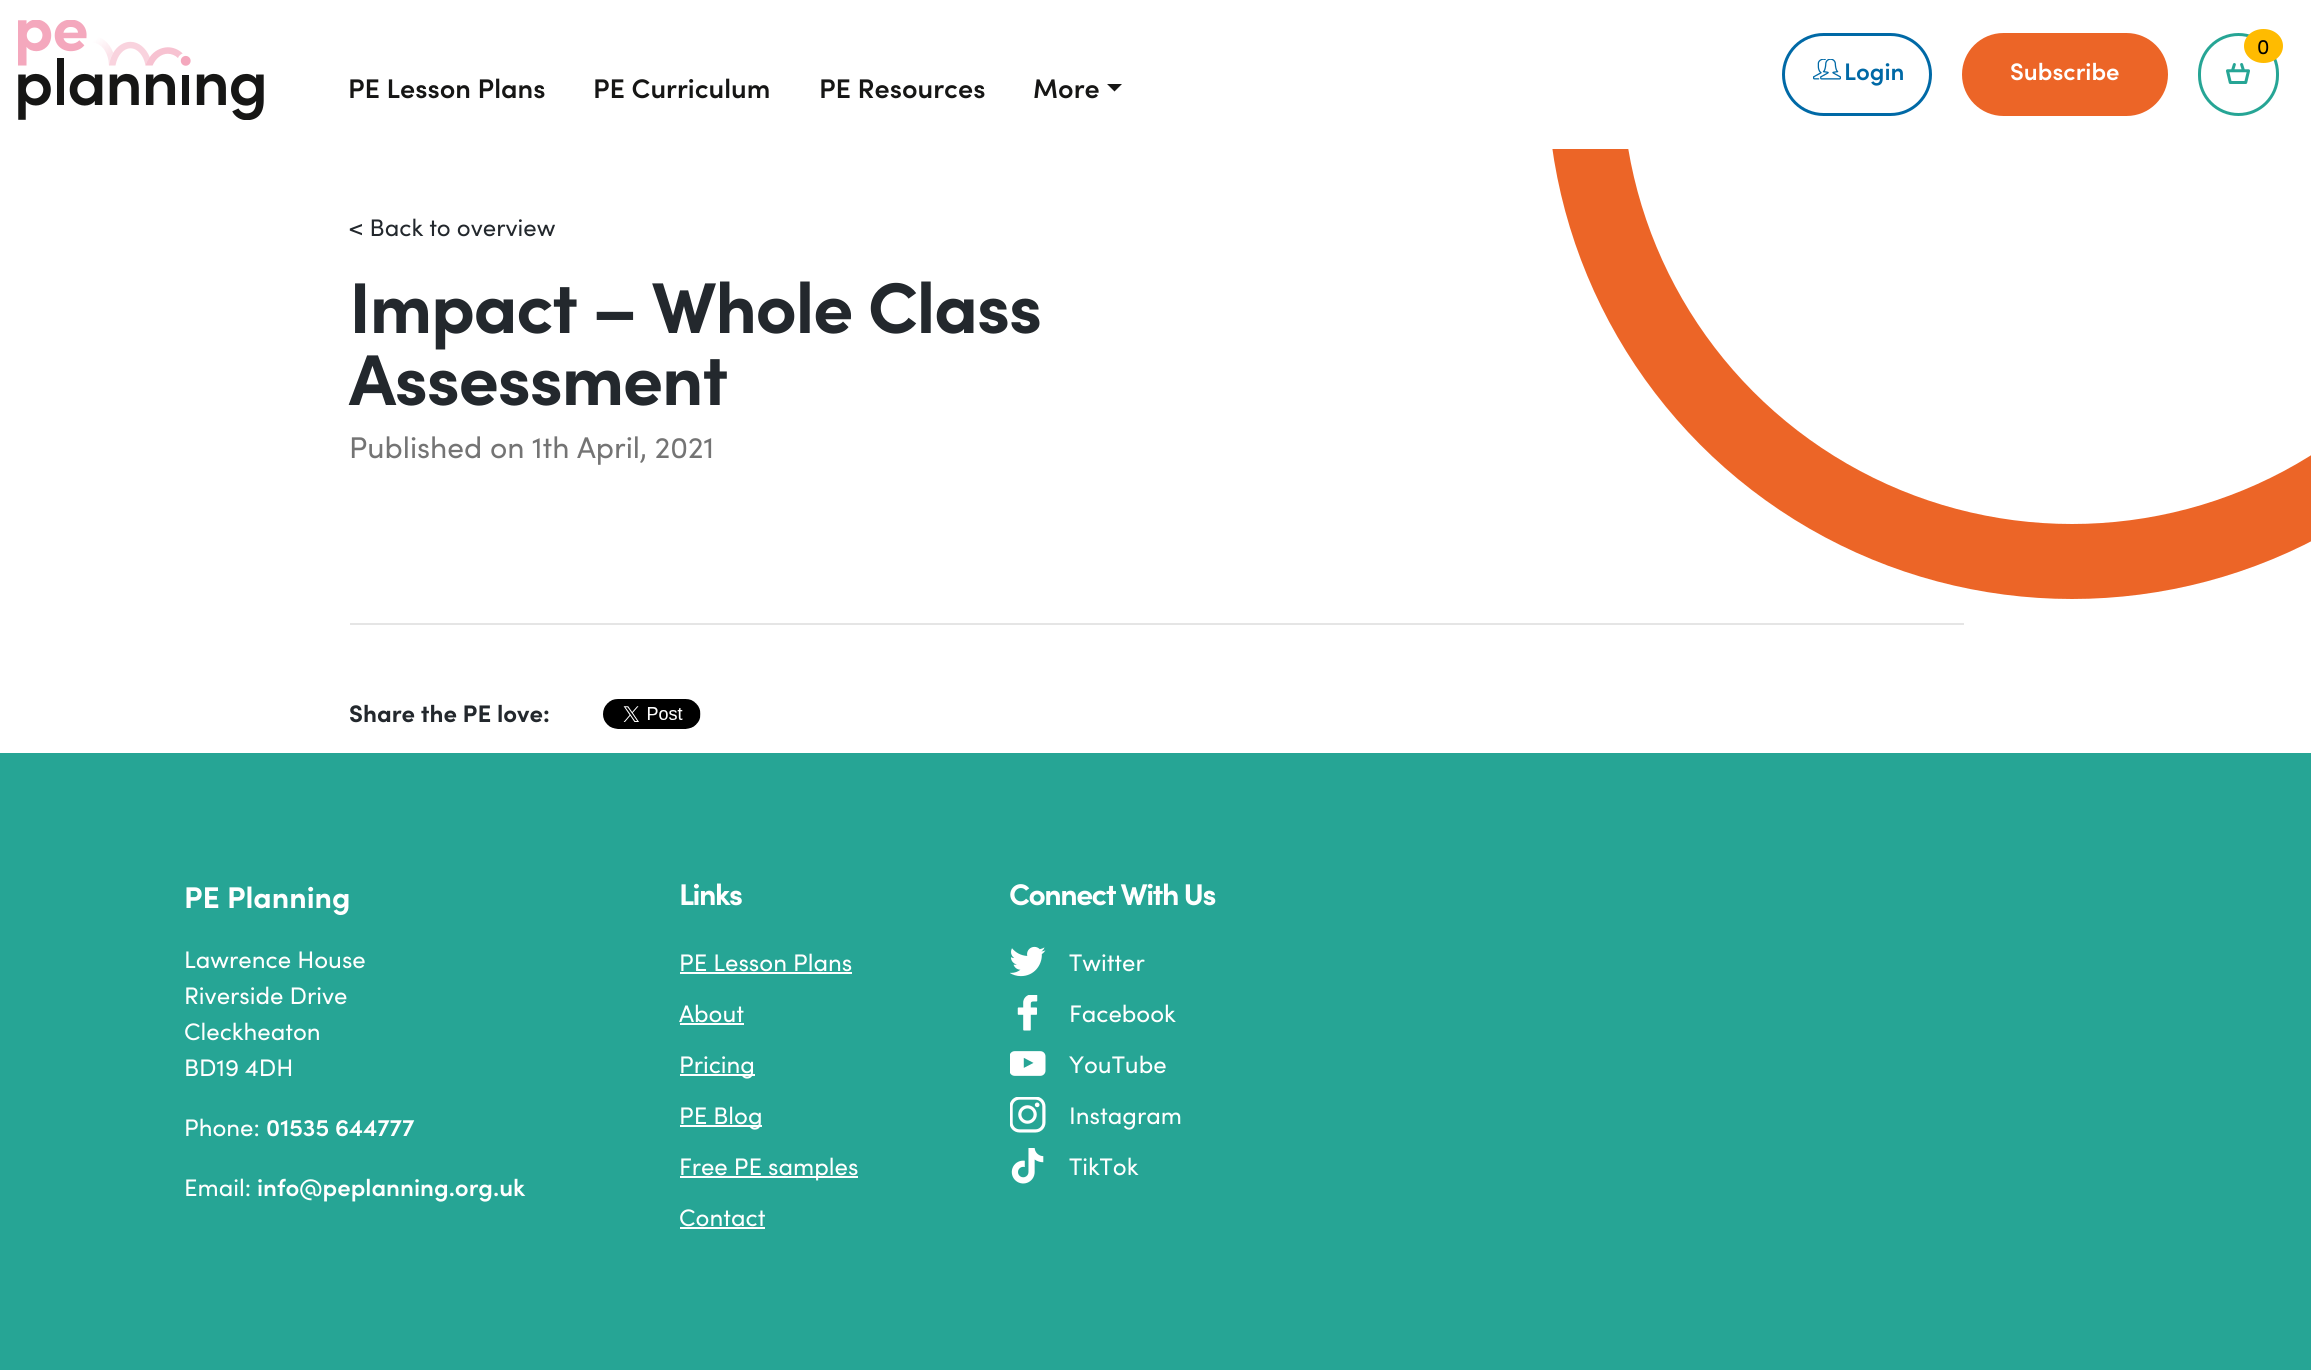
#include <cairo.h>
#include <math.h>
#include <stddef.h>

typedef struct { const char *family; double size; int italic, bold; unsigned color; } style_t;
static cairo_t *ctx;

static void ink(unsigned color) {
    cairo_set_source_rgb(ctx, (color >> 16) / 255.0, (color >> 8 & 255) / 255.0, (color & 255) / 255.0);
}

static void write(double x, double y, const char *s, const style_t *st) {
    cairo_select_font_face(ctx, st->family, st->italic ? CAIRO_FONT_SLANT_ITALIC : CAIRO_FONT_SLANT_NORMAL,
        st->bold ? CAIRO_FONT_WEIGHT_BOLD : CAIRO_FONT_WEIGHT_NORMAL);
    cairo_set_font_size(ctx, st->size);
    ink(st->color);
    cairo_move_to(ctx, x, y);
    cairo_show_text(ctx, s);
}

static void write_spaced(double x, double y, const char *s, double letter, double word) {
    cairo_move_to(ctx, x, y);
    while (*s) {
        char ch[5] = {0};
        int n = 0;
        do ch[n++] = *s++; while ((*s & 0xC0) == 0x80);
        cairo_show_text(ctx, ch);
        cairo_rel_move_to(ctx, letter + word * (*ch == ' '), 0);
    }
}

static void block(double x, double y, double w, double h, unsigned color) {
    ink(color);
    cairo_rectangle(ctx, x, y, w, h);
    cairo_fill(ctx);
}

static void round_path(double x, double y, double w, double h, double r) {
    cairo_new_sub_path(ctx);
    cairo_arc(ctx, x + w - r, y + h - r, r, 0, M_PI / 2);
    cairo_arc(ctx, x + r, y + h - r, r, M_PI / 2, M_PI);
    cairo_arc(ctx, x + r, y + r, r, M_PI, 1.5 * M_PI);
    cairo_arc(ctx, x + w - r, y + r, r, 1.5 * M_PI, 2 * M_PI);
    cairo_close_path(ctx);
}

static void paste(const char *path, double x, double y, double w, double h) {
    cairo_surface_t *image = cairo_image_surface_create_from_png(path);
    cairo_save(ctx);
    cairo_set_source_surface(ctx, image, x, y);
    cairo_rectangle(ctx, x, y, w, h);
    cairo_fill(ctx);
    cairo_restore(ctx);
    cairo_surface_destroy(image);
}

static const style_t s1 = {"Sofia", 21, 0, 0, 0x000000};
static const style_t s2 = {"Sofia SemiBold", 24, 0, 0, 0x0069a6};
static const style_t s3 = {"Sofia SemiBold", 24, 0, 0, 0xffffff};
static const style_t s4 = {"Sofia SemiBold", 27, 0, 0, 0x161615};
static const style_t s5 = {"Sofia", 24, 0, 0, 0x23282d};
static const style_t s6 = {"Sofia", 30, 0, 0, 0x747474};
static const style_t s7 = {"Sofia", 24, 0, 1, 0x23282d};
static const style_t s8 = {"Sofia", 30, 0, 1, 0xffffff};
static const style_t s9 = {"Sofia", 24, 0, 0, 0xffffff};

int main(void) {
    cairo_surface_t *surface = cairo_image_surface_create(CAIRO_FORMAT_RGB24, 2311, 1370);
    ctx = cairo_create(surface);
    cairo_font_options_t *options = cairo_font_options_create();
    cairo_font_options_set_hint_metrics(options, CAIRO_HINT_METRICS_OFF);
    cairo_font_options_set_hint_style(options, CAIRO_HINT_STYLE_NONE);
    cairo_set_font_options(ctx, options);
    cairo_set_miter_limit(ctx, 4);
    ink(0xffffff);
    cairo_paint(ctx);
    cairo_arc(ctx, 2072, 74, 487.5, 0, 2 * M_PI);
    ink(0xec6527);
    cairo_set_line_width(ctx, 75);
    cairo_stroke(ctx);
    block(1547, 0, 82, 149, 0xffffff);
    paste("pic1.png", 18, 20, 246, 100);
    round_path(2199.5, 34.5, 78, 80, 39);
    ink(0x26a595);
    cairo_set_line_width(ctx, 3);
    cairo_stroke(ctx);
    paste("pic2.png", 2226, 63, 24, 21);
    ink(0xffbb00);
    cairo_new_path(ctx);
    cairo_move_to(ctx, 2263.5, 29);
    cairo_curve_to(ctx, 2274.5, 29, 2283, 36.5, 2283, 46);
    cairo_curve_to(ctx, 2283, 55.5, 2274.5, 63, 2263.5, 63);
    cairo_curve_to(ctx, 2252.5, 63, 2244, 55.5, 2244, 46);
    cairo_curve_to(ctx, 2244, 36.5, 2252.5, 29, 2263.5, 29);
    cairo_close_path(ctx);
    cairo_fill(ctx);
    write(2257, 54, "0", &s1);
    round_path(1783.5, 34.5, 147, 80, 40);
    ink(0x0069a6);
    cairo_stroke(ctx);
    paste("pic3.png", 1813, 59, 28, 21);
    write(1844, 80, "Login", &s2);
    ink(0xec6527);
    round_path(1963.5, 34.5, 203, 80, 40);
    cairo_fill_preserve(ctx);
    cairo_stroke(ctx);
    write(2010, 80, "Subscribe", &s3);
    write(348, 98, "PE Lesson Plans", &s4);
    write(593, 98, "PE Curriculum", &s4);
    write(819, 98, "PE Resources", &s4);
    write(1033, 98, "More", &s4);
    cairo_new_path(ctx);
    cairo_move_to(ctx, 1107, 84);
    cairo_line_to(ctx, 1122, 84);
    cairo_line_to(ctx, 1114.5, 91.5);
    cairo_close_path(ctx);
    cairo_fill(ctx);
    write(349, 236, "< Back to overview", &s5);
    cairo_select_font_face(ctx, "Sofia", CAIRO_FONT_SLANT_NORMAL, CAIRO_FONT_WEIGHT_BOLD);
    cairo_set_font_size(ctx, 72);
    write_spaced(349, 333, "Impact – Whole Class", -1.5, 0);
    write_spaced(349, 405, "Assessment", -1.5, 0);
    write(349, 458, "Published on 1th April, 2021", &s6);
    block(350, 623, 1614, 2, 0xe5e5e5);
    write(349, 722, "Share the PE love:", &s7);
    paste("pic4.png", 603, 699, 98, 30);
    block(0, 753, 2311, 617, 0x26a595);
    write(184, 908, "PE Planning", &s8);
    write(184, 968, "Lawrence House", &s9);
    write(184, 1004, "Riverside Drive", &s9);
    write(184, 1040, "Cleckheaton", &s9);
    write(184, 1076, "BD19 4DH", &s9);
    write(184, 1136, "Phone:", &s9);
    write(266, 1136, "01535 644777", &s3);
    write(184, 1196, "Email:", &s9);
    write(257, 1196, "info@peplanning.org.uk", &s3);
    cairo_select_font_face(ctx, "Sofia", CAIRO_FONT_SLANT_NORMAL, CAIRO_FONT_WEIGHT_BOLD);
    cairo_set_font_size(ctx, 30);
    write_spaced(679, 905, "Links", -1.5, 0);
    write(679, 971, "PE Lesson Plans", &s9);
    block(680, 972, 172, 2, 0xffffff);
    write(679, 1022, "About", &s9);
    block(680, 1023, 64, 2, 0xffffff);
    block(680, 1074, 75, 2, 0xffffff);
    write(679, 1073, "Pricing", &s9);
    block(680, 1125, 82, 2, 0xffffff);
    write(679, 1124, "PE Blog", &s9);
    block(680, 1176, 178, 2, 0xffffff);
    write(679, 1175, "Free PE samples", &s9);
    write(679, 1226, "Contact", &s9);
    block(680, 1227, 85, 2, 0xffffff);
    cairo_select_font_face(ctx, "Sofia", CAIRO_FONT_SLANT_NORMAL, CAIRO_FONT_WEIGHT_BOLD);
    cairo_set_font_size(ctx, 30);
    write_spaced(1009, 905, "Connect With Us", -1.5, 0);
    paste("pic5.png", 1010, 946, 36, 31);
    write(1069, 971, "Twitter", &s9);
    paste("pic6.png", 1017, 995, 21, 36);
    write(1069, 1022, "Facebook", &s9);
    paste("pic7.png", 1010, 1051, 36, 25);
    write(1069, 1073, "YouTube", &s9);
    paste("pic8.png", 1010, 1097, 36, 36);
    write(1069, 1124, "Instagram", &s9);
    paste("pic9.png", 1011, 1148, 33, 36);
    write(1069, 1175, "TikTok", &s9);
    cairo_surface_write_to_png(surface, "screenshot.png");
    cairo_font_options_destroy(options);
    cairo_destroy(ctx);
    cairo_surface_destroy(surface);
    return 0;
}
